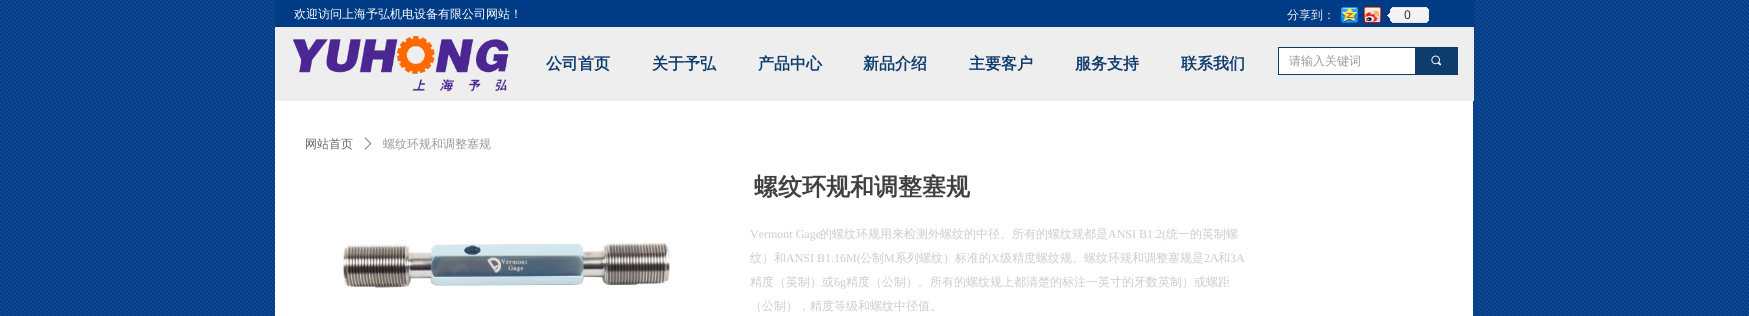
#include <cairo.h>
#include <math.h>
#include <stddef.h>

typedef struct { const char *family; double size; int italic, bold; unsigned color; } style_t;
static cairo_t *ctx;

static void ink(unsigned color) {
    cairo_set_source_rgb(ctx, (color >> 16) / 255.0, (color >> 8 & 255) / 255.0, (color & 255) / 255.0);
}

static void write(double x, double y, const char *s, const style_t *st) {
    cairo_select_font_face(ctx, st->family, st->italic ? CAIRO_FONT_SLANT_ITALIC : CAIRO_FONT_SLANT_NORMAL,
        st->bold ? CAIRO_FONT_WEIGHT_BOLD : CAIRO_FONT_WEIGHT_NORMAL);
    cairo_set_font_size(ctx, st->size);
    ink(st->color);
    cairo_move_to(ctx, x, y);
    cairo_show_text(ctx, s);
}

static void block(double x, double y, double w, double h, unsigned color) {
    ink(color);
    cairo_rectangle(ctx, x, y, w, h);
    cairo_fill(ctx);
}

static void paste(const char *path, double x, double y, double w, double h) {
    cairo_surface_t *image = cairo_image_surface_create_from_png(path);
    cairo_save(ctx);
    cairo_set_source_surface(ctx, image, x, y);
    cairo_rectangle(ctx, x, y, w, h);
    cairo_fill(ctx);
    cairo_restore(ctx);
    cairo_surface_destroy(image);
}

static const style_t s1 = {"WenQuanYi Zen Hei Medium", 12, 0, 0, 0xffffff};
static const style_t s2 = {"WenQuanYi Zen Hei Medium", 12, 0, 0, 0xeeeeee};
static const style_t s3 = {"Noto Sans", 12, 0, 0, 0x333333};
static const style_t s4 = {"WenQuanYi Zen Hei", 16, 0, 1, 0x0e3c6c};
static const style_t s5 = {"WenQuanYi Zen Hei Medium", 12, 0, 0, 0x999999};
static const style_t s6 = {"WenQuanYi Zen Hei Medium", 12, 0, 0, 0x666666};
static const style_t s7 = {"WenQuanYi Zen Hei", 24, 0, 1, 0x404040};
static const style_t s8 = {"Liberation Serif", 12, 0, 0, 0xcccccc};
static const style_t s9 = {"WenQuanYi Zen Hei Medium", 12, 0, 0, 0xcccccc};

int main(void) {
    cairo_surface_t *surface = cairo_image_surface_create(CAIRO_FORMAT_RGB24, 1749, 316);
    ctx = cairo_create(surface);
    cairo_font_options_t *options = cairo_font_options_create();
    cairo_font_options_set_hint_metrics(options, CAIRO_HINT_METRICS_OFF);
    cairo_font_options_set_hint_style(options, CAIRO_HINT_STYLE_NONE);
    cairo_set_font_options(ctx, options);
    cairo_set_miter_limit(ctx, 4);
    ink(0xffffff);
    cairo_paint(ctx);
    paste("pic1.png", 0, 0, 1749, 100);
    block(275, 0, 1200, 27, 0x003b86);
    write(294, 18, "欢迎访问上海予弘机电设备有限公司网站！", &s1);
    write(1287, 19, "分享到：", &s2);
    paste("pic2.png", 1341, 7, 17, 16);
    paste("pic3.png", 1364, 7, 17, 16);
    paste("pic4.png", 1387, 7, 42, 16);
    write(1404, 19, "0", &s3);
    paste("pic7.png", 0, 100, 1749, 216);
    block(275, 27, 1199, 74, 0xeeeeee);
    paste("pic5.png", 292, 36, 217, 56);
    write(546, 69, "公司首页", &s4);
    write(652, 69, "关于予弘", &s4);
    write(758, 69, "产品中心", &s4);
    write(863, 69, "新品介绍", &s4);
    write(969, 69, "主要客户", &s4);
    write(1075, 69, "服务支持", &s4);
    write(1181, 69, "联系我们", &s4);
    cairo_rectangle(ctx, 1278.5, 47.5, 179, 27);
    cairo_set_line_width(ctx, 1);
    cairo_stroke(ctx);
    block(1279, 48, 136, 26, 0xffffff);
    write(1289, 65, "请输入关键词", &s5);
    block(1415, 48, 42, 26, 0x0e3c6c);
    paste("pic6.png", 1431, 55, 11, 11);
    block(275, 101, 1198, 215, 0xffffff);
    write(305, 148, "网站首页", &s6);
    paste("pic8.png", 364, 137, 8, 13);
    write(383, 148, "螺纹环规和调整塞规", &s5);
    write(754, 195, "螺纹环规和调整塞规", &s7);
    paste("pic9.png", 342, 242, 329, 46);
    write(750, 238, "Vermont Gage", &s8);
    write(820, 238, "的螺纹环规用来检测外螺纹的中径。所有的螺纹规都是", &s9);
    write(1108, 238, "ANSI B1.2(", &s8);
    write(1166, 238, "统一的英制螺", &s9);
    write(750, 262, "纹）和", &s9);
    write(786, 262, "ANSI B1.16M(", &s8);
    write(860, 262, "公制", &s9);
    write(884, 262, "M", &s8);
    write(895, 262, "系列螺纹）标准的", &s9);
    write(991, 262, "X", &s8);
    write(1000, 262, "级精度螺纹规。螺纹环规和调整塞规是", &s9);
    write(1204, 262, "2A", &s8);
    write(1218, 262, "和", &s9);
    write(1230, 262, "3A", &s8);
    write(750, 286, "精度（英制）或", &s9);
    write(834, 286, "6g", &s8);
    write(846, 286, "精度（公制）。所有的螺纹规上都清楚的标注一英寸的牙数英制）或螺距", &s9);
    write(750, 310, "（公制），精度等级和螺纹中径值。", &s9);
    cairo_surface_write_to_png(surface, "screenshot.png");
    cairo_font_options_destroy(options);
    cairo_destroy(ctx);
    cairo_surface_destroy(surface);
    return 0;
}
